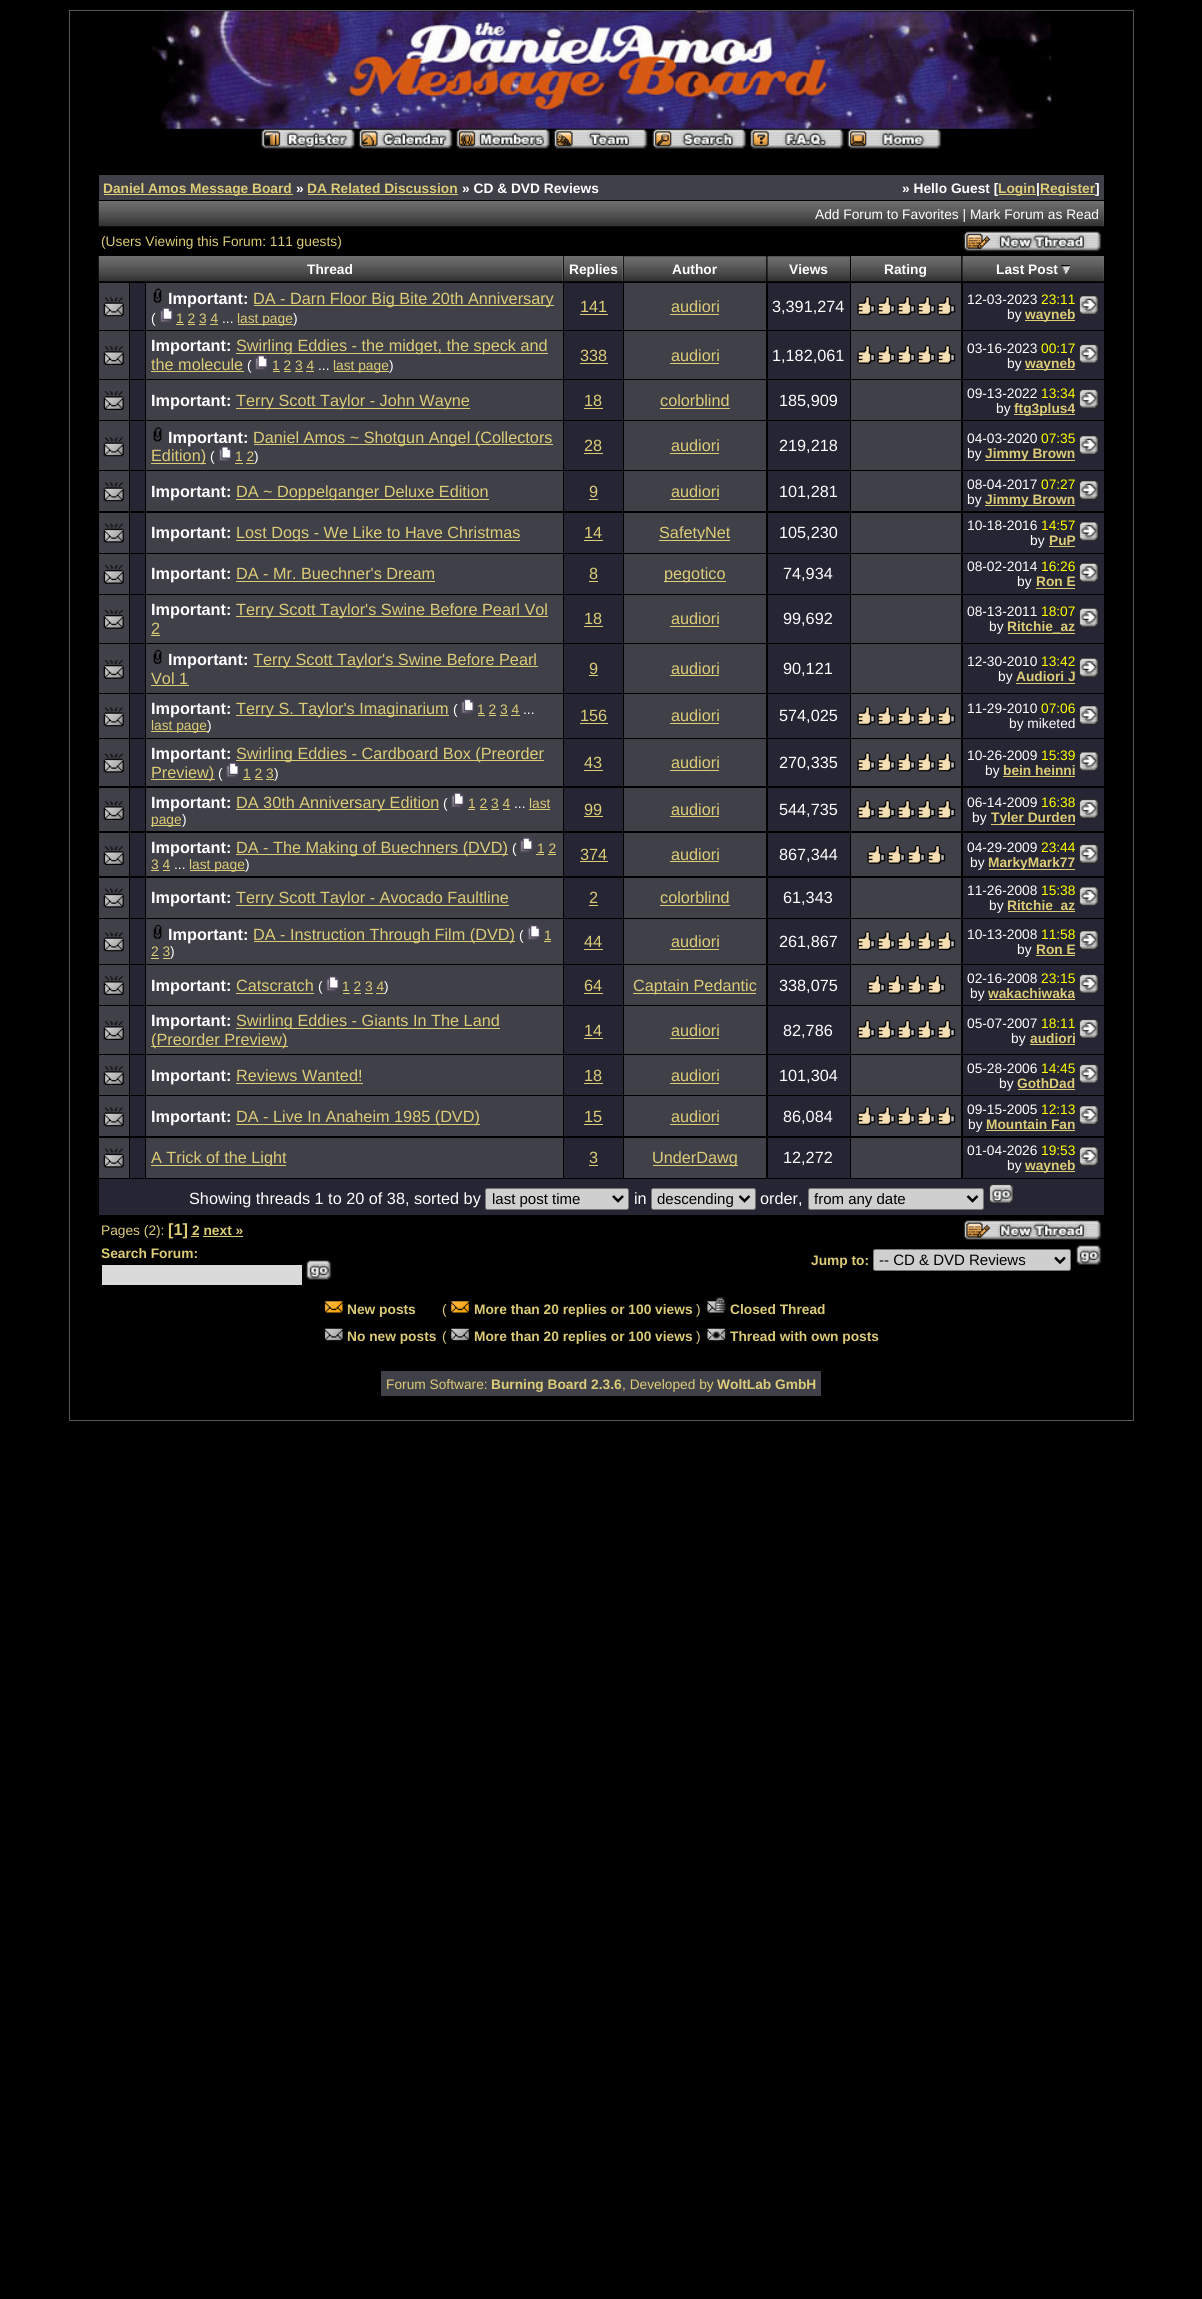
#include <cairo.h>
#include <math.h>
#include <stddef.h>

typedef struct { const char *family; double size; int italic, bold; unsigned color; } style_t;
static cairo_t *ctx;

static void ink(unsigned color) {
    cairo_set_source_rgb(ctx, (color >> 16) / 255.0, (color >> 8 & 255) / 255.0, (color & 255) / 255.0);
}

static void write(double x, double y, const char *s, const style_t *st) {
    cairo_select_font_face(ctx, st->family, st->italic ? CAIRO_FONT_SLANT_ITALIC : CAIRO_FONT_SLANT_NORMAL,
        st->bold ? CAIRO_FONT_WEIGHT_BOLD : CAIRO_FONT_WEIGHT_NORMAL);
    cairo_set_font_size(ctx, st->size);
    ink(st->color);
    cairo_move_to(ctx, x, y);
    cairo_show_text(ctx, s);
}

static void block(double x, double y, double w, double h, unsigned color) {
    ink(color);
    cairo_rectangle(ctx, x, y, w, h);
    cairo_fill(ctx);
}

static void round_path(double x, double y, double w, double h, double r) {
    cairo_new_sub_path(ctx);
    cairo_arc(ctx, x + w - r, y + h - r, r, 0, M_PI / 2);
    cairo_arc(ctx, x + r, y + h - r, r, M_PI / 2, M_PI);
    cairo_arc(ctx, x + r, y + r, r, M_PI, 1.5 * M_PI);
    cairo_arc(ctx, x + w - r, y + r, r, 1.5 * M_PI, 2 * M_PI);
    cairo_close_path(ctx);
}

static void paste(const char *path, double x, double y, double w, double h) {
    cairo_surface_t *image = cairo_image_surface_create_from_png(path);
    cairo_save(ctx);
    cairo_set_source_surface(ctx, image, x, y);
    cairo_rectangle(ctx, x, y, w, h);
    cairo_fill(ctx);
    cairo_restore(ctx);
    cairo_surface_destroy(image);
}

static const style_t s1 = {"Liberation Sans", 13.75, 0, 1, 0xddcc77};
static const style_t s2 = {"Liberation Sans", 13.75, 0, 1, 0xffffff};
static const style_t s3 = {"Liberation Sans", 13.75, 0, 0, 0xffffff};
static const style_t s4 = {"Liberation Sans", 13.75, 0, 0, 0xddcc77};
static const style_t s5 = {"Liberation Sans", 16.25, 0, 1, 0xffffff};
static const style_t s6 = {"Liberation Sans", 16.25, 0, 0, 0xddcc77};
static const style_t s7 = {"Liberation Sans", 16.25, 0, 0, 0xffffff};
static const style_t s8 = {"Liberation Sans", 13.75, 0, 0, 0xffff00};
static const style_t s9 = {"Liberation Sans", 15, 0, 0, 0x000000};
static const style_t s10 = {"Liberation Sans", 16.25, 0, 1, 0xddcc77};

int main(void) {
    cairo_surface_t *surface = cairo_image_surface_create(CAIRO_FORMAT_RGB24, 1202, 2299);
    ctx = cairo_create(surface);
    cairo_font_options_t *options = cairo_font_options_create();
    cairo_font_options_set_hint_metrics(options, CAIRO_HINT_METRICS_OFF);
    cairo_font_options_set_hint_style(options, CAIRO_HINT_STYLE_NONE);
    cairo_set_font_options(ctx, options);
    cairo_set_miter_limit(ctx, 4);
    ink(0x000000);
    cairo_paint(ctx);
    block(69, 10, 1065, 1411, 0x555555);
    block(70, 11, 1063, 1409, 0x000000);
    paste("pic1.png", 151, 11, 901, 118);
    paste("pic2.png", 261, 128, 94, 21);
    paste("pic3.png", 358, 128, 95, 21);
    paste("pic4.png", 456, 128, 94, 21);
    paste("pic5.png", 553, 128, 95, 21);
    paste("pic6.png", 652, 128, 95, 21);
    paste("pic7.png", 750, 128, 94, 21);
    paste("pic8.png", 847, 128, 95, 21);
    block(99, 175, 1005, 25, 0x404049);
    block(104, 194, 189, 1, 0xddcc77);
    write(103, 193, "Daniel Amos Message Board", &s1);
    write(296, 193, "»", &s2);
    write(307, 193, "DA Related Discussion", &s1);
    block(308, 194, 150, 1, 0xddcc77);
    write(462, 193, "» CD & DVD Reviews", &s2);
    write(902, 193, "» Hello Guest [", &s2);
    block(999, 194, 37, 1, 0xddcc77);
    write(998, 193, "Login", &s1);
    write(1036, 193, "|", &s2);
    block(1040, 194, 55, 1, 0xddcc77);
    write(1040, 193, "Register", &s1);
    write(1095, 193, "]", &s2);
    block(99, 201, 1005, 25, 0x777777);
    paste("pic9.png", 98, 201, 1006, 26);
    write(815, 219, "Add Forum to Favorites | Mark Forum as Read", &s3);
    write(101, 246, "(Users Viewing this Forum: 111 guests)", &s4);
    paste("pic10.png", 963, 231, 139, 21);
    block(99, 256, 464, 25, 0x777777);
    paste("pic11.png", 98, 256, 465, 26);
    write(307, 274, "Thread", &s2);
    block(564, 256, 59, 25, 0x777777);
    paste("pic12.png", 563, 256, 60, 26);
    write(569, 274, "Replies", &s2);
    paste("pic13.png", 623, 256, 144, 26);
    write(672, 274, "Author", &s2);
    paste("pic14.png", 767, 256, 83, 26);
    write(789, 274, "Views", &s2);
    block(851, 256, 110, 25, 0x777777);
    paste("pic15.png", 851, 256, 111, 26);
    write(884, 274, "Rating", &s2);
    block(963, 256, 141, 25, 0x777777);
    paste("pic16.png", 962, 256, 142, 26);
    write(996, 274, "Last Post", &s2);
    paste("pic17.png", 1061, 265, 9, 9);
    block(99, 283, 30, 47, 0x404049);
    paste("pic18.png", 103, 297, 21, 20);
    block(130, 283, 15, 47, 0x252533);
    block(146, 283, 417, 47, 0x404049);
    paste("pic19.png", 153, 288, 9, 15);
    write(168, 304, "Important:", &s5);
    block(254, 305, 300, 1, 0xddcc77);
    write(253, 304, "DA - Darn Floor Big Bite 20th Anniversary", &s6);
    write(151, 323, "(", &s3);
    paste("pic20.png", 160, 307, 13, 16);
    write(176, 323, "1 2 3 4", &s4);
    block(176, 324, 8, 1, 0xddcc77);
    block(188, 324, 7, 1, 0xddcc77);
    block(199, 324, 7, 1, 0xddcc77);
    write(222, 323, "...", &s3);
    block(210, 324, 8, 1, 0xddcc77);
    block(238, 324, 55, 1, 0xddcc77);
    write(237, 323, "last page", &s4);
    write(293, 323, ")", &s3);
    block(564, 283, 59, 47, 0x252533);
    write(580, 312, "141", &s6);
    block(580, 314, 28, 1, 0xddcc77);
    block(624, 283, 142, 47, 0x404049);
    write(671, 312, "audiori", &s6);
    block(670, 314, 49, 1, 0xddcc77);
    block(768, 283, 82, 47, 0x252533);
    write(772, 312, "3,391,274", &s7);
    block(851, 283, 110, 47, 0x404049);
    paste("pic21.png", 857, 296, 19, 20);
    paste("pic21.png", 877, 296, 19, 20);
    paste("pic21.png", 897, 296, 19, 20);
    paste("pic21.png", 917, 296, 19, 20);
    paste("pic21.png", 937, 296, 19, 20);
    block(963, 283, 141, 47, 0x252533);
    write(967, 304, "12-03-2023", &s3);
    write(1041, 304, "23:11", &s8);
    write(1007, 319, "by", &s3);
    block(1025, 320, 50, 1, 0xddcc77);
    write(1025, 319, "wayneb", &s1);
    paste("pic22.png", 1079, 295, 20, 20);
    block(99, 331, 30, 48, 0x404049);
    paste("pic23.png", 103, 346, 21, 19);
    block(130, 331, 15, 48, 0x252533);
    block(146, 331, 417, 48, 0x404049);
    write(151, 351, "Important:", &s5);
    block(236, 353, 312, 1, 0xddcc77);
    write(236, 351, "Swirling Eddies - the midget, the speck and", &s6);
    write(151, 370, "the molecule", &s6);
    block(151, 371, 93, 1, 0xddcc77);
    write(247, 370, "(", &s3);
    paste("pic24.png", 255, 355, 13, 15);
    write(272, 370, "1 2 3 4", &s4);
    block(273, 371, 7, 1, 0xddcc77);
    block(284, 371, 7, 1, 0xddcc77);
    block(295, 371, 8, 1, 0xddcc77);
    write(318, 370, "...", &s3);
    block(306, 371, 8, 1, 0xddcc77);
    block(334, 371, 55, 1, 0xddcc77);
    write(333, 370, "last page", &s4);
    write(389, 370, ")", &s3);
    block(564, 331, 59, 48, 0x252533);
    write(580, 361, "338", &s6);
    block(580, 363, 28, 1, 0xddcc77);
    block(624, 331, 142, 48, 0x404049);
    write(671, 361, "audiori", &s6);
    block(670, 363, 49, 1, 0xddcc77);
    block(768, 331, 82, 48, 0x252533);
    write(772, 361, "1,182,061", &s7);
    block(851, 331, 110, 48, 0x404049);
    paste("pic25.png", 857, 345, 19, 19);
    paste("pic25.png", 877, 345, 19, 19);
    paste("pic25.png", 897, 345, 19, 19);
    paste("pic25.png", 917, 345, 19, 19);
    paste("pic25.png", 937, 345, 19, 19);
    block(963, 331, 141, 48, 0x252533);
    write(967, 353, "03-16-2023", &s3);
    write(1041, 353, "00:17", &s8);
    write(1007, 368, "by", &s3);
    block(1025, 369, 50, 1, 0xddcc77);
    write(1025, 368, "wayneb", &s1);
    paste("pic26.png", 1079, 344, 20, 20);
    block(99, 380, 30, 40, 0x404049);
    paste("pic23.png", 103, 391, 21, 19);
    block(130, 380, 15, 40, 0x252533);
    block(146, 380, 417, 40, 0x404049);
    write(151, 406, "Important:", &s5);
    block(236, 408, 234, 1, 0xddcc77);
    write(236, 406, "Terry Scott Taylor - John Wayne", &s6);
    block(564, 380, 59, 40, 0x252533);
    write(584, 406, "18", &s6);
    block(584, 408, 19, 1, 0xddcc77);
    block(624, 380, 142, 40, 0x404049);
    write(660, 406, "colorblind", &s6);
    block(660, 408, 70, 1, 0xddcc77);
    block(768, 380, 82, 40, 0x252533);
    write(779, 406, "185,909", &s7);
    block(851, 380, 110, 40, 0x404049);
    block(963, 380, 141, 40, 0x252533);
    write(967, 398, "09-13-2022", &s3);
    write(1041, 398, "13:34", &s8);
    write(996, 413, "by", &s3);
    block(1014, 414, 61, 1, 0xddcc77);
    write(1014, 413, "ftg3plus4", &s1);
    paste("pic26.png", 1079, 389, 20, 20);
    block(99, 421, 30, 49, 0x404049);
    paste("pic18.png", 103, 437, 21, 20);
    block(130, 421, 15, 49, 0x252533);
    block(146, 421, 417, 49, 0x404049);
    paste("pic27.png", 153, 427, 9, 15);
    write(168, 443, "Important:", &s5);
    block(254, 444, 299, 1, 0xddcc77);
    write(253, 443, "Daniel Amos ~ Shotgun Angel (Collectors", &s6);
    block(151, 463, 55, 1, 0xddcc77);
    write(151, 461, "Edition)", &s6);
    write(210, 461, "(", &s3);
    paste("pic28.png", 218, 446, 14, 16);
    write(235, 461, "1 2", &s4);
    block(235, 463, 8, 1, 0xddcc77);
    write(254, 461, ")", &s3);
    block(246, 463, 8, 1, 0xddcc77);
    block(564, 421, 59, 49, 0x252533);
    write(584, 451, "28", &s6);
    block(584, 453, 19, 1, 0xddcc77);
    block(624, 421, 142, 49, 0x404049);
    write(671, 451, "audiori", &s6);
    block(670, 453, 49, 1, 0xddcc77);
    block(768, 421, 82, 49, 0x252533);
    write(779, 451, "219,218", &s7);
    block(851, 421, 110, 49, 0x404049);
    block(963, 421, 141, 49, 0x252533);
    write(967, 443, "04-03-2020", &s3);
    write(1041, 443, "07:35", &s8);
    write(967, 458, "by", &s3);
    block(985, 460, 90, 1, 0xddcc77);
    write(985, 458, "Jimmy Brown", &s1);
    paste("pic22.png", 1079, 435, 20, 20);
    block(99, 471, 30, 40, 0x404049);
    paste("pic18.png", 103, 482, 21, 20);
    block(130, 471, 15, 40, 0x252533);
    block(146, 471, 417, 40, 0x404049);
    write(151, 497, "Important:", &s5);
    block(236, 499, 253, 1, 0xddcc77);
    write(236, 497, "DA ~ Doppelganger Deluxe Edition", &s6);
    block(564, 471, 59, 40, 0x252533);
    write(589, 497, "9", &s6);
    block(589, 499, 9, 1, 0xddcc77);
    block(624, 471, 142, 40, 0x404049);
    write(671, 497, "audiori", &s6);
    block(670, 499, 49, 1, 0xddcc77);
    block(768, 471, 82, 40, 0x252533);
    write(779, 497, "101,281", &s7);
    block(851, 471, 110, 40, 0x404049);
    block(963, 471, 141, 40, 0x252533);
    write(967, 489, "08-04-2017", &s3);
    write(1041, 489, "07:27", &s8);
    write(967, 504, "by", &s3);
    block(985, 505, 90, 1, 0xddcc77);
    write(985, 504, "Jimmy Brown", &s1);
    paste("pic22.png", 1079, 480, 20, 20);
    block(99, 513, 30, 40, 0x404049);
    paste("pic29.png", 103, 523, 21, 20);
    block(130, 513, 15, 40, 0x252533);
    block(146, 513, 417, 40, 0x404049);
    write(151, 538, "Important:", &s5);
    block(236, 540, 284, 1, 0xddcc77);
    write(236, 538, "Lost Dogs - We Like to Have Christmas", &s6);
    block(564, 513, 59, 40, 0x252533);
    write(584, 538, "14", &s6);
    block(584, 540, 19, 1, 0xddcc77);
    block(624, 513, 142, 40, 0x404049);
    block(659, 540, 71, 1, 0xddcc77);
    write(659, 538, "SafetyNet", &s6);
    block(768, 513, 82, 40, 0x252533);
    write(779, 538, "105,230", &s7);
    block(851, 513, 110, 40, 0x404049);
    block(963, 513, 141, 40, 0x252533);
    write(967, 530, "10-18-2016", &s3);
    write(1041, 530, "14:57", &s8);
    write(1030, 545, "by", &s3);
    write(1049, 545, "PuP", &s1);
    block(1049, 546, 26, 1, 0xddcc77);
    paste("pic30.png", 1079, 521, 20, 20);
    block(99, 554, 30, 40, 0x404049);
    paste("pic31.png", 103, 565, 21, 19);
    block(130, 554, 15, 40, 0x252533);
    block(146, 554, 417, 40, 0x404049);
    write(151, 579, "Important:", &s5);
    write(236, 579, "DA - Mr. Buechner's Dream", &s6);
    block(236, 581, 199, 1, 0xddcc77);
    block(564, 554, 59, 40, 0x252533);
    write(589, 579, "8", &s6);
    block(589, 581, 9, 1, 0xddcc77);
    block(624, 554, 142, 40, 0x404049);
    block(664, 581, 62, 1, 0xddcc77);
    write(664, 579, "pegotico", &s6);
    block(768, 554, 82, 40, 0x252533);
    write(783, 579, "74,934", &s7);
    block(851, 554, 110, 40, 0x404049);
    block(963, 554, 141, 40, 0x252533);
    write(967, 571, "08-02-2014", &s3);
    write(1041, 571, "16:26", &s8);
    write(1017, 586, "by", &s3);
    write(1036, 586, "Ron E", &s1);
    block(1036, 588, 39, 1, 0xddcc77);
    paste("pic32.png", 1079, 562, 20, 21);
    block(99, 595, 30, 48, 0x404049);
    paste("pic31.png", 103, 610, 21, 19);
    block(130, 595, 15, 48, 0x252533);
    block(146, 595, 417, 48, 0x404049);
    write(151, 615, "Important:", &s5);
    block(236, 616, 312, 1, 0xddcc77);
    write(236, 615, "Terry Scott Taylor's Swine Before Pearl Vol", &s6);
    write(151, 634, "2", &s6);
    block(151, 635, 9, 1, 0xddcc77);
    block(564, 595, 59, 48, 0x252533);
    write(584, 624, "18", &s6);
    block(584, 626, 19, 1, 0xddcc77);
    block(624, 595, 142, 48, 0x404049);
    write(671, 624, "audiori", &s6);
    block(670, 626, 49, 1, 0xddcc77);
    block(768, 595, 82, 48, 0x252533);
    write(783, 624, "99,692", &s7);
    block(851, 595, 110, 48, 0x404049);
    block(963, 595, 141, 48, 0x252533);
    write(967, 616, "08-13-2011", &s3);
    write(1041, 616, "18:07", &s8);
    write(989, 631, "by", &s3);
    write(1007, 631, "Ritchie_az", &s1);
    block(1008, 633, 67, 1, 0xddcc77);
    paste("pic32.png", 1079, 607, 20, 21);
    block(99, 644, 30, 49, 0x404049);
    paste("pic31.png", 103, 660, 21, 19);
    block(130, 644, 15, 49, 0x252533);
    block(146, 644, 417, 49, 0x404049);
    paste("pic33.png", 153, 649, 9, 15);
    write(168, 665, "Important:", &s5);
    block(254, 666, 284, 1, 0xddcc77);
    write(253, 665, "Terry Scott Taylor's Swine Before Pearl", &s6);
    write(151, 684, "Vol 1", &s6);
    block(151, 685, 38, 1, 0xddcc77);
    block(564, 644, 59, 49, 0x252533);
    write(589, 674, "9", &s6);
    block(589, 675, 9, 1, 0xddcc77);
    block(624, 644, 142, 49, 0x404049);
    write(671, 674, "audiori", &s6);
    block(670, 675, 49, 1, 0xddcc77);
    block(768, 644, 82, 49, 0x252533);
    write(783, 674, "90,121", &s7);
    block(851, 644, 110, 49, 0x404049);
    block(963, 644, 141, 49, 0x252533);
    write(967, 666, "12-30-2010", &s3);
    write(1041, 666, "13:42", &s8);
    write(998, 681, "by", &s3);
    write(1016, 681, "Audiori J", &s1);
    block(1016, 683, 59, 1, 0xddcc77);
    paste("pic32.png", 1079, 657, 20, 21);
    block(99, 694, 30, 44, 0x404049);
    paste("pic18.png", 103, 707, 21, 20);
    block(130, 694, 15, 44, 0x252533);
    block(146, 694, 417, 44, 0x404049);
    write(151, 714, "Important:", &s5);
    block(236, 715, 213, 1, 0xddcc77);
    write(236, 714, "Terry S. Taylor's Imaginarium", &s6);
    write(453, 714, "(", &s3);
    paste("pic34.png", 461, 698, 13, 16);
    write(477, 714, "1 2 3 4", &s4);
    block(478, 715, 7, 1, 0xddcc77);
    block(489, 715, 7, 1, 0xddcc77);
    block(500, 715, 8, 1, 0xddcc77);
    write(523, 714, "...", &s3);
    block(511, 715, 9, 1, 0xddcc77);
    block(151, 731, 57, 1, 0xddcc77);
    write(151, 730, "last page", &s4);
    write(207, 730, ")", &s3);
    block(564, 694, 59, 44, 0x252533);
    write(580, 721, "156", &s6);
    block(580, 723, 28, 1, 0xddcc77);
    block(624, 694, 142, 44, 0x404049);
    write(671, 721, "audiori", &s6);
    block(670, 723, 49, 1, 0xddcc77);
    block(768, 694, 82, 44, 0x252533);
    write(779, 721, "574,025", &s7);
    block(851, 694, 110, 44, 0x404049);
    paste("pic21.png", 857, 706, 19, 20);
    paste("pic21.png", 877, 706, 19, 20);
    paste("pic21.png", 897, 706, 19, 20);
    paste("pic21.png", 917, 706, 19, 20);
    paste("pic21.png", 937, 706, 19, 20);
    block(963, 694, 141, 44, 0x252533);
    write(967, 713, "11-29-2010", &s3);
    write(1041, 713, "07:06", &s8);
    write(1009, 728, "by miketed", &s3);
    paste("pic22.png", 1079, 705, 20, 20);
    block(99, 739, 30, 47, 0x404049);
    paste("pic29.png", 103, 753, 21, 20);
    block(130, 739, 15, 47, 0x252533);
    block(146, 739, 417, 47, 0x404049);
    write(151, 759, "Important:", &s5);
    block(236, 760, 308, 1, 0xddcc77);
    write(236, 759, "Swirling Eddies - Cardboard Box (Preorder", &s6);
    block(151, 779, 64, 1, 0xddcc77);
    write(151, 778, "Preview)", &s6);
    write(218, 778, "(", &s3);
    paste("pic35.png", 226, 762, 13, 16);
    write(243, 778, "1 2 3", &s4);
    block(243, 779, 8, 1, 0xddcc77);
    block(255, 779, 8, 1, 0xddcc77);
    block(266, 779, 8, 1, 0xddcc77);
    write(274, 778, ")", &s3);
    block(564, 739, 59, 47, 0x252533);
    write(584, 768, "43", &s6);
    block(584, 770, 19, 1, 0xddcc77);
    block(624, 739, 142, 47, 0x404049);
    write(671, 768, "audiori", &s6);
    block(670, 770, 49, 1, 0xddcc77);
    block(768, 739, 82, 47, 0x252533);
    write(779, 768, "270,335", &s7);
    block(851, 739, 110, 47, 0x404049);
    paste("pic36.png", 857, 752, 19, 20);
    paste("pic36.png", 877, 752, 19, 20);
    paste("pic36.png", 897, 752, 19, 20);
    paste("pic36.png", 917, 752, 19, 20);
    paste("pic36.png", 937, 752, 19, 20);
    block(963, 739, 141, 47, 0x252533);
    write(967, 760, "10-26-2009", &s3);
    write(1041, 760, "15:39", &s8);
    write(985, 775, "by", &s3);
    write(1003, 775, "bein heinni", &s1);
    block(1003, 776, 72, 1, 0xddcc77);
    paste("pic30.png", 1079, 751, 20, 20);
    block(99, 788, 30, 43, 0x404049);
    paste("pic23.png", 103, 801, 21, 19);
    block(130, 788, 15, 43, 0x252533);
    block(146, 788, 417, 43, 0x404049);
    write(151, 808, "Important:", &s5);
    block(236, 809, 203, 1, 0xddcc77);
    write(236, 808, "DA 30th Anniversary Edition", &s6);
    write(443, 808, "(", &s3);
    paste("pic35.png", 451, 792, 13, 16);
    write(468, 808, "1 2 3 4", &s4);
    block(468, 809, 7, 1, 0xddcc77);
    block(480, 809, 8, 1, 0xddcc77);
    block(491, 809, 8, 1, 0xddcc77);
    write(514, 808, "...", &s3);
    block(503, 809, 7, 1, 0xddcc77);
    block(529, 809, 21, 1, 0xddcc77);
    write(529, 808, "last", &s4);
    block(151, 825, 30, 1, 0xddcc77);
    write(151, 824, "page", &s4);
    write(182, 824, ")", &s3);
    block(564, 788, 59, 43, 0x252533);
    write(584, 815, "99", &s6);
    block(584, 816, 19, 1, 0xddcc77);
    block(624, 788, 142, 43, 0x404049);
    write(671, 815, "audiori", &s6);
    block(670, 816, 49, 1, 0xddcc77);
    block(768, 788, 82, 43, 0x252533);
    write(779, 815, "544,735", &s7);
    block(851, 788, 110, 43, 0x404049);
    paste("pic25.png", 857, 800, 19, 19);
    paste("pic25.png", 877, 800, 19, 19);
    paste("pic25.png", 897, 800, 19, 19);
    paste("pic25.png", 917, 800, 19, 19);
    paste("pic25.png", 937, 800, 19, 19);
    block(963, 788, 141, 43, 0x252533);
    write(967, 807, "06-14-2009", &s3);
    write(1041, 807, "16:38", &s8);
    write(972, 822, "by", &s3);
    block(991, 824, 84, 1, 0xddcc77);
    write(991, 822, "Tyler Durden", &s1);
    paste("pic26.png", 1079, 799, 20, 20);
    block(99, 833, 30, 43, 0x404049);
    paste("pic23.png", 103, 846, 21, 19);
    block(130, 833, 15, 43, 0x252533);
    block(146, 833, 417, 43, 0x404049);
    write(151, 853, "Important:", &s5);
    block(236, 854, 272, 1, 0xddcc77);
    write(236, 853, "DA - The Making of Buechners (DVD)", &s6);
    write(512, 853, "(", &s3);
    paste("pic37.png", 520, 837, 13, 16);
    write(537, 853, "1 2", &s4);
    block(536, 854, 8, 1, 0xddcc77);
    block(548, 854, 8, 1, 0xddcc77);
    write(151, 869, "3 4", &s4);
    block(151, 870, 8, 1, 0xddcc77);
    write(174, 869, "...", &s3);
    block(163, 870, 7, 1, 0xddcc77);
    block(190, 870, 55, 1, 0xddcc77);
    write(189, 869, "last page", &s4);
    write(245, 869, ")", &s3);
    block(564, 833, 59, 43, 0x252533);
    write(580, 860, "374", &s6);
    block(580, 861, 28, 1, 0xddcc77);
    block(624, 833, 142, 43, 0x404049);
    write(671, 860, "audiori", &s6);
    block(670, 861, 49, 1, 0xddcc77);
    block(768, 833, 82, 43, 0x252533);
    write(779, 860, "867,344", &s7);
    block(851, 833, 110, 43, 0x404049);
    paste("pic25.png", 867, 845, 19, 19);
    paste("pic25.png", 887, 845, 19, 19);
    paste("pic25.png", 907, 845, 19, 19);
    paste("pic25.png", 927, 845, 19, 19);
    block(963, 833, 141, 43, 0x252533);
    write(967, 852, "04-29-2009", &s3);
    write(1041, 852, "23:44", &s8);
    write(970, 867, "by", &s3);
    block(989, 869, 86, 1, 0xddcc77);
    write(988, 867, "MarkyMark77", &s1);
    paste("pic26.png", 1079, 844, 20, 20);
    block(99, 878, 30, 40, 0x404049);
    paste("pic29.png", 103, 888, 21, 20);
    block(130, 878, 15, 40, 0x252533);
    block(146, 878, 417, 40, 0x404049);
    write(151, 903, "Important:", &s5);
    block(236, 905, 273, 1, 0xddcc77);
    write(236, 903, "Terry Scott Taylor - Avocado Faultline", &s6);
    block(564, 878, 59, 40, 0x252533);
    write(589, 903, "2", &s6);
    block(589, 905, 9, 1, 0xddcc77);
    block(624, 878, 142, 40, 0x404049);
    write(660, 903, "colorblind", &s6);
    block(660, 905, 70, 1, 0xddcc77);
    block(768, 878, 82, 40, 0x252533);
    write(783, 903, "61,343", &s7);
    block(851, 878, 110, 40, 0x404049);
    block(963, 878, 141, 40, 0x252533);
    write(967, 895, "11-26-2008", &s3);
    write(1041, 895, "15:38", &s8);
    write(989, 910, "by", &s3);
    block(1008, 911, 67, 1, 0xddcc77);
    write(1007, 910, "Ritchie_az", &s1);
    paste("pic30.png", 1079, 886, 20, 20);
    block(99, 919, 30, 45, 0x404049);
    paste("pic18.png", 103, 932, 21, 20);
    block(130, 919, 15, 45, 0x252533);
    block(146, 919, 417, 45, 0x404049);
    paste("pic33.png", 153, 924, 9, 15);
    write(168, 940, "Important:", &s5);
    block(254, 941, 261, 1, 0xddcc77);
    write(253, 940, "DA - Instruction Through Film (DVD)", &s6);
    write(519, 940, "(", &s3);
    paste("pic38.png", 527, 925, 13, 15);
    write(544, 940, "1", &s4);
    block(544, 941, 7, 1, 0xddcc77);
    write(151, 956, "2 3", &s4);
    block(151, 958, 8, 1, 0xddcc77);
    write(170, 956, ")", &s3);
    block(163, 958, 7, 1, 0xddcc77);
    block(564, 919, 59, 45, 0x252533);
    write(584, 947, "44", &s6);
    block(584, 949, 19, 1, 0xddcc77);
    block(624, 919, 142, 45, 0x404049);
    write(671, 947, "audiori", &s6);
    block(670, 949, 49, 1, 0xddcc77);
    block(768, 919, 82, 45, 0x252533);
    write(779, 947, "261,867", &s7);
    block(851, 919, 110, 45, 0x404049);
    paste("pic21.png", 857, 931, 19, 20);
    paste("pic21.png", 877, 931, 19, 20);
    paste("pic21.png", 897, 931, 19, 20);
    paste("pic21.png", 917, 931, 19, 20);
    paste("pic21.png", 937, 931, 19, 20);
    block(963, 919, 141, 45, 0x252533);
    write(967, 939, "10-13-2008", &s3);
    write(1041, 939, "11:58", &s8);
    write(1017, 954, "by", &s3);
    write(1036, 954, "Ron E", &s1);
    block(1036, 955, 39, 1, 0xddcc77);
    paste("pic22.png", 1079, 930, 20, 20);
    block(99, 965, 30, 40, 0x404049);
    paste("pic23.png", 103, 976, 21, 19);
    block(130, 965, 15, 40, 0x252533);
    block(146, 965, 417, 40, 0x404049);
    write(151, 991, "Important:", &s5);
    write(236, 991, "Catscratch", &s6);
    block(236, 993, 78, 1, 0xddcc77);
    write(318, 991, "(", &s3);
    paste("pic39.png", 326, 976, 13, 16);
    write(342, 991, "1 2 3 4", &s4);
    block(343, 993, 7, 1, 0xddcc77);
    block(354, 993, 7, 1, 0xddcc77);
    block(365, 993, 8, 1, 0xddcc77);
    block(376, 993, 9, 1, 0xddcc77);
    write(384, 991, ")", &s3);
    block(564, 965, 59, 40, 0x252533);
    write(584, 991, "64", &s6);
    block(584, 993, 19, 1, 0xddcc77);
    block(624, 965, 142, 40, 0x404049);
    block(633, 993, 123, 1, 0xddcc77);
    write(633, 991, "Captain Pedantic", &s6);
    block(768, 965, 82, 40, 0x252533);
    write(779, 991, "338,075", &s7);
    block(851, 965, 110, 40, 0x404049);
    paste("pic25.png", 867, 975, 19, 19);
    paste("pic25.png", 887, 975, 19, 19);
    paste("pic25.png", 907, 975, 19, 19);
    paste("pic25.png", 927, 975, 19, 19);
    block(963, 965, 141, 40, 0x252533);
    write(967, 983, "02-16-2008", &s3);
    write(1041, 983, "23:15", &s8);
    write(970, 998, "by", &s3);
    write(988, 998, "wakachiwaka", &s1);
    block(989, 999, 86, 1, 0xddcc77);
    paste("pic26.png", 1079, 974, 20, 20);
    block(99, 1006, 30, 48, 0x404049);
    paste("pic23.png", 103, 1021, 21, 19);
    block(130, 1006, 15, 48, 0x252533);
    block(146, 1006, 417, 48, 0x404049);
    write(151, 1026, "Important:", &s5);
    block(236, 1028, 264, 1, 0xddcc77);
    write(236, 1026, "Swirling Eddies - Giants In The Land", &s6);
    block(151, 1046, 137, 1, 0xddcc77);
    write(151, 1045, "(Preorder Preview)", &s6);
    block(564, 1006, 59, 48, 0x252533);
    write(584, 1036, "14", &s6);
    block(584, 1038, 19, 1, 0xddcc77);
    block(624, 1006, 142, 48, 0x404049);
    write(671, 1036, "audiori", &s6);
    block(670, 1038, 49, 1, 0xddcc77);
    block(768, 1006, 82, 48, 0x252533);
    write(783, 1036, "82,786", &s7);
    block(851, 1006, 110, 48, 0x404049);
    paste("pic25.png", 857, 1020, 19, 19);
    paste("pic25.png", 877, 1020, 19, 19);
    paste("pic25.png", 897, 1020, 19, 19);
    paste("pic25.png", 917, 1020, 19, 19);
    paste("pic25.png", 937, 1020, 19, 19);
    block(963, 1006, 141, 48, 0x252533);
    write(967, 1028, "05-07-2007", &s3);
    write(1041, 1028, "18:11", &s8);
    write(1011, 1043, "by", &s3);
    write(1030, 1043, "audiori", &s1);
    block(1030, 1044, 45, 1, 0xddcc77);
    paste("pic26.png", 1079, 1019, 20, 20);
    block(99, 1055, 30, 40, 0x404049);
    paste("pic23.png", 103, 1066, 21, 19);
    block(130, 1055, 15, 40, 0x252533);
    block(146, 1055, 417, 40, 0x404049);
    write(151, 1081, "Important:", &s5);
    write(236, 1081, "Reviews Wanted!", &s6);
    block(236, 1083, 127, 1, 0xddcc77);
    block(564, 1055, 59, 40, 0x252533);
    write(584, 1081, "18", &s6);
    block(584, 1083, 19, 1, 0xddcc77);
    block(624, 1055, 142, 40, 0x404049);
    write(671, 1081, "audiori", &s6);
    block(670, 1083, 49, 1, 0xddcc77);
    block(768, 1055, 82, 40, 0x252533);
    write(779, 1081, "101,304", &s7);
    block(851, 1055, 110, 40, 0x404049);
    block(963, 1055, 141, 40, 0x252533);
    write(967, 1073, "05-28-2006", &s3);
    write(1041, 1073, "14:45", &s8);
    write(999, 1088, "by", &s3);
    write(1017, 1088, "GothDad", &s1);
    block(1018, 1089, 57, 1, 0xddcc77);
    paste("pic26.png", 1079, 1064, 20, 20);
    block(99, 1096, 30, 40, 0x404049);
    paste("pic18.png", 103, 1107, 21, 20);
    block(130, 1096, 15, 40, 0x252533);
    block(146, 1096, 417, 40, 0x404049);
    write(151, 1122, "Important:", &s5);
    block(236, 1124, 244, 1, 0xddcc77);
    write(236, 1122, "DA - Live In Anaheim 1985 (DVD)", &s6);
    block(564, 1096, 59, 40, 0x252533);
    write(584, 1122, "15", &s6);
    block(584, 1124, 19, 1, 0xddcc77);
    block(624, 1096, 142, 40, 0x404049);
    write(671, 1122, "audiori", &s6);
    block(670, 1124, 49, 1, 0xddcc77);
    block(768, 1096, 82, 40, 0x252533);
    write(783, 1122, "86,084", &s7);
    block(851, 1096, 110, 40, 0x404049);
    paste("pic21.png", 857, 1106, 19, 20);
    paste("pic21.png", 877, 1106, 19, 20);
    paste("pic21.png", 897, 1106, 19, 20);
    paste("pic21.png", 917, 1106, 19, 20);
    paste("pic21.png", 937, 1106, 19, 20);
    block(963, 1096, 141, 40, 0x252533);
    write(967, 1114, "09-15-2005", &s3);
    write(1041, 1114, "12:13", &s8);
    write(968, 1129, "by", &s3);
    write(986, 1129, "Mountain Fan", &s1);
    block(986, 1130, 89, 1, 0xddcc77);
    paste("pic22.png", 1079, 1105, 20, 20);
    block(99, 1138, 30, 40, 0x404049);
    paste("pic29.png", 103, 1148, 21, 20);
    block(130, 1138, 15, 40, 0x252533);
    block(146, 1138, 417, 40, 0x404049);
    block(151, 1165, 135, 1, 0xddcc77);
    write(151, 1163, "A Trick of the Light", &s6);
    block(564, 1138, 59, 40, 0x252533);
    write(589, 1163, "3", &s6);
    block(589, 1165, 9, 1, 0xddcc77);
    block(624, 1138, 142, 40, 0x404049);
    block(653, 1165, 85, 1, 0xddcc77);
    write(652, 1163, "UnderDawg", &s6);
    block(768, 1138, 82, 40, 0x252533);
    write(783, 1163, "12,272", &s7);
    block(851, 1138, 110, 40, 0x404049);
    block(963, 1138, 141, 40, 0x252533);
    write(967, 1155, "01-04-2026", &s3);
    write(1041, 1155, "19:53", &s8);
    write(1007, 1170, "by", &s3);
    block(1025, 1171, 50, 1, 0xddcc77);
    write(1025, 1170, "wayneb", &s1);
    paste("pic30.png", 1079, 1146, 20, 20);
    block(99, 1179, 1005, 36, 0x252533);
    write(189, 1204, "Showing threads 1 to 20 of 38, sorted by", &s7);
    ink(0xcfcfcf);
    round_path(485.5, 1188.5, 143, 21, 2);
    cairo_fill_preserve(ctx);
    ink(0x767676);
    cairo_set_line_width(ctx, 1);
    cairo_stroke(ctx);
    cairo_new_path(ctx);
    cairo_move_to(ctx, 613, 1196);
    cairo_line_to(ctx, 618, 1201);
    cairo_line_to(ctx, 623, 1196);
    ink(0x000000);
    cairo_set_line_width(ctx, 2.5);
    cairo_stroke(ctx);
    write(492, 1204, "last post time", &s9);
    write(634, 1204, "in", &s7);
    ink(0xcfcfcf);
    round_path(651.5, 1188.5, 104, 21, 2);
    cairo_fill_preserve(ctx);
    ink(0x767676);
    cairo_set_line_width(ctx, 1);
    cairo_stroke(ctx);
    cairo_new_path(ctx);
    cairo_move_to(ctx, 739.5, 1196);
    cairo_line_to(ctx, 744.5, 1201);
    cairo_line_to(ctx, 749.5, 1196);
    ink(0x000000);
    cairo_set_line_width(ctx, 2.5);
    cairo_stroke(ctx);
    write(657, 1204, "descending", &s9);
    write(760, 1204, "order,", &s7);
    ink(0xcfcfcf);
    round_path(808.5, 1188.5, 175, 21, 2);
    cairo_fill_preserve(ctx);
    ink(0x767676);
    cairo_set_line_width(ctx, 1);
    cairo_stroke(ctx);
    cairo_new_path(ctx);
    cairo_move_to(ctx, 967.5, 1196);
    cairo_line_to(ctx, 972.5, 1201);
    cairo_line_to(ctx, 977.5, 1196);
    ink(0x000000);
    cairo_set_line_width(ctx, 2.5);
    cairo_stroke(ctx);
    write(814, 1204, "from any date", &s9);
    paste("pic40.png", 989, 1184, 25, 20);
    write(101, 1235, "Pages (2):", &s4);
    write(168, 1235, "[1]", &s10);
    write(192, 1235, "2 next »", &s1);
    block(191, 1236, 8, 1, 0xddcc77);
    block(203, 1236, 40, 1, 0xddcc77);
    paste("pic41.png", 963, 1220, 139, 20);
    write(101, 1258, "Search Forum:", &s1);
    block(102, 1265, 200, 20, 0xdadada);
    paste("pic42.png", 306, 1260, 26, 20);
    write(811, 1265, "Jump to:", &s1);
    ink(0xcfcfcf);
    round_path(873.5, 1249.5, 197, 21, 2);
    cairo_fill_preserve(ctx);
    ink(0x767676);
    cairo_set_line_width(ctx, 1);
    cairo_stroke(ctx);
    cairo_new_path(ctx);
    cairo_move_to(ctx, 1055, 1257.5);
    cairo_line_to(ctx, 1060, 1262.5);
    cairo_line_to(ctx, 1065, 1257.5);
    ink(0x000000);
    cairo_set_line_width(ctx, 2.5);
    cairo_stroke(ctx);
    write(879, 1265, "-- CD & DVD Reviews", &s9);
    paste("pic42.png", 1076, 1245, 26, 20);
    paste("pic43.png", 324, 1301, 19, 12);
    write(347, 1314, "New posts", &s1);
    write(442, 1314, "(", &s4);
    paste("pic44.png", 451, 1301, 18, 12);
    write(474, 1314, "More than 20 replies or 100 views", &s1);
    write(696, 1314, ")", &s4);
    paste("pic45.png", 707, 1297, 20, 16);
    write(730, 1314, "Closed Thread", &s1);
    paste("pic46.png", 324, 1328, 19, 13);
    write(347, 1341, "No new posts", &s1);
    write(442, 1341, "(", &s4);
    paste("pic47.png", 451, 1328, 18, 13);
    write(474, 1341, "More than 20 replies or 100 views", &s1);
    write(696, 1341, ")", &s4);
    paste("pic48.png", 707, 1328, 19, 14);
    write(730, 1341, "Thread with own posts", &s1);
    block(381, 1371, 440, 25, 0x404049);
    write(386, 1389, "Forum Software:", &s4);
    write(491, 1389, "Burning Board 2.3.6", &s1);
    write(622, 1389, ", Developed by", &s4);
    write(717, 1389, "WoltLab GmbH", &s1);
    cairo_surface_write_to_png(surface, "screenshot.png");
    cairo_font_options_destroy(options);
    cairo_destroy(ctx);
    cairo_surface_destroy(surface);
    return 0;
}
